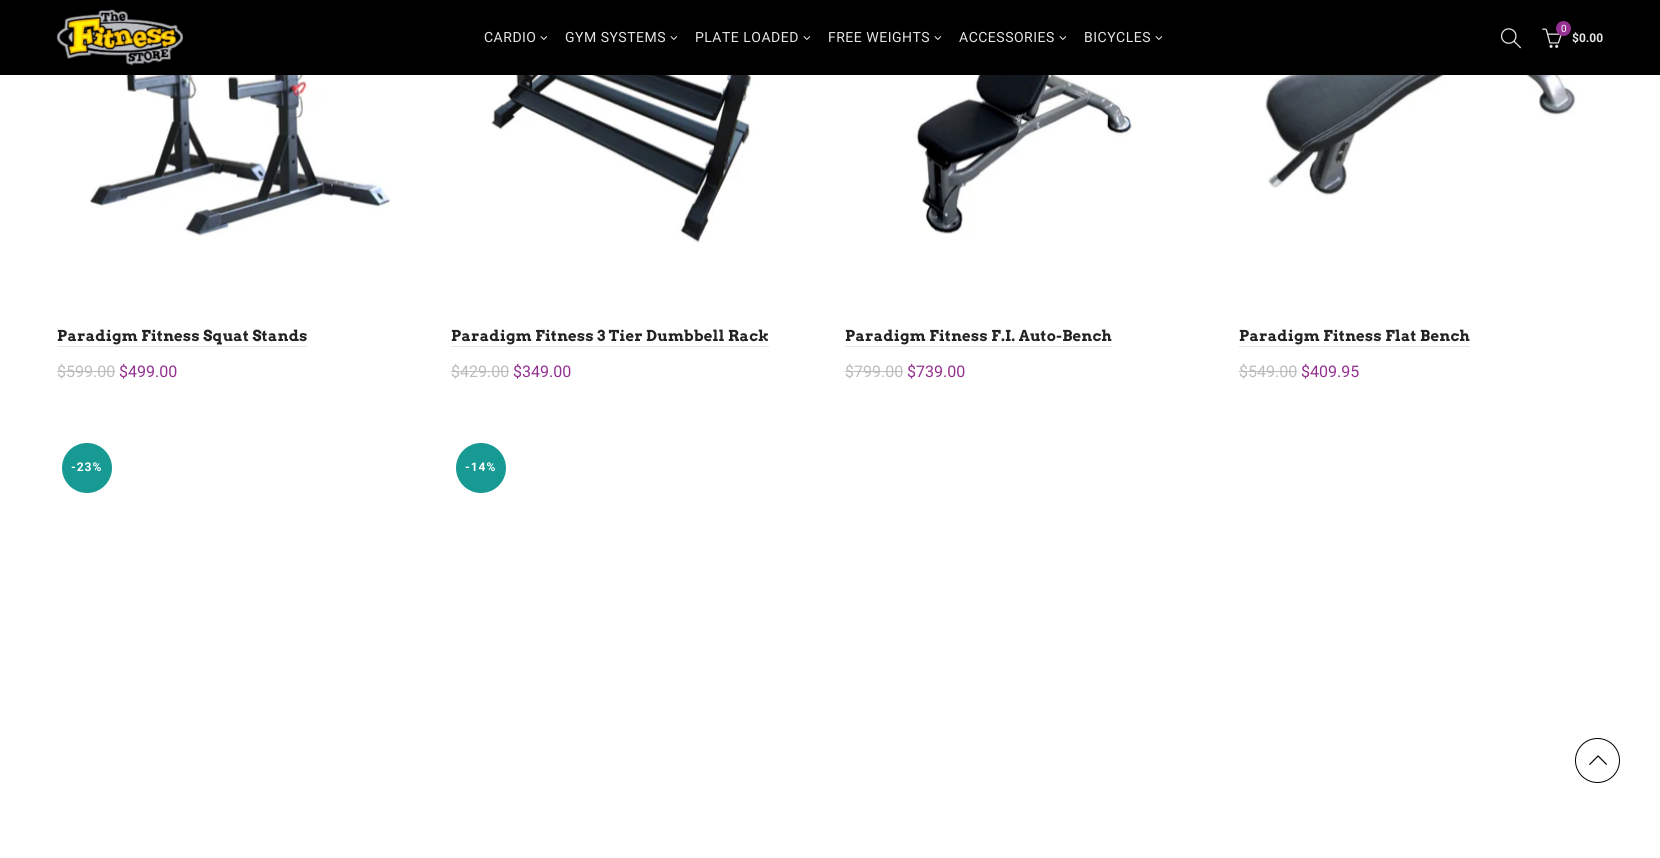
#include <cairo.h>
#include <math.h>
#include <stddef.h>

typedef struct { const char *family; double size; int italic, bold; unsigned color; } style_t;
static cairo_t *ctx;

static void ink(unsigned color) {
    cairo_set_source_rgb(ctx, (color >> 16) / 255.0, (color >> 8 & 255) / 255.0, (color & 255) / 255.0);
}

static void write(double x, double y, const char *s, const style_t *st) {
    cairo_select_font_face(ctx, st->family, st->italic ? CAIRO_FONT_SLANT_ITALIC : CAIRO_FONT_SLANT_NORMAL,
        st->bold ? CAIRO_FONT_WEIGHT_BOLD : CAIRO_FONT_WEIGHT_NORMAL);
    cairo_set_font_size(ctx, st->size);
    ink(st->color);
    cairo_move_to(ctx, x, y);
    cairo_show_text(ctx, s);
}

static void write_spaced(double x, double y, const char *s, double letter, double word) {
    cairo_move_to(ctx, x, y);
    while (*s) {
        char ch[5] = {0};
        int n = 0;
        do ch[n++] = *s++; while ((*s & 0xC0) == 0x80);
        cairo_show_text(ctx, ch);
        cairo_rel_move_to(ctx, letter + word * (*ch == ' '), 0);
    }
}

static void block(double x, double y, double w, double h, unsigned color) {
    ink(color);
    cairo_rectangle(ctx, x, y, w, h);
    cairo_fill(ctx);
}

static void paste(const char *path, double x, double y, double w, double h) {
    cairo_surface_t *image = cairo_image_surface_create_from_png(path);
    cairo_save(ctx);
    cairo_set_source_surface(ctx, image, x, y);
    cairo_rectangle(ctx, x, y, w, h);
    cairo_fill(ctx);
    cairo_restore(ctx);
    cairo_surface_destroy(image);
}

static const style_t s1 = {"Roboto", 10, 0, 0, 0xffffff};
static const style_t s2 = {"Roboto", 12, 0, 1, 0xe6e6e6};
static const style_t s3 = {"Roboto", 16, 0, 0, 0xbdbdbd};
static const style_t s4 = {"Roboto", 16, 0, 0, 0x943091};

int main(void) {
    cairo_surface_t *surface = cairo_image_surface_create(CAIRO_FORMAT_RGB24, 1660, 858);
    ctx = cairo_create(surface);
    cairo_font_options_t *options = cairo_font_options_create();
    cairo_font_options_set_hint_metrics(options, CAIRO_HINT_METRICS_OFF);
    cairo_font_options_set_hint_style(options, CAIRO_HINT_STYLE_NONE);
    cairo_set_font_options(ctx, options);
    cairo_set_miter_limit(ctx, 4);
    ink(0xffffff);
    cairo_paint(ctx);
    block(0, 0, 1660, 75, 0x000000);
    paste("pic1.png", 56, 9, 127, 57);
    cairo_select_font_face(ctx, "Roboto", CAIRO_FONT_SLANT_NORMAL, CAIRO_FONT_WEIGHT_NORMAL);
    cairo_set_font_size(ctx, 14);
    ink(0xe6e6e6);
    write_spaced(484, 42, "CARDIO", 0.5, 0);
    paste("pic2.png", 540, 36, 8, 4);
    write_spaced(565, 42, "GYM SYSTEMS", 0.5, 0);
    paste("pic2.png", 670, 36, 8, 4);
    write_spaced(695, 42, "PLATE LOADED", 0.5, 0);
    paste("pic2.png", 803, 36, 8, 4);
    write_spaced(828, 42, "FREE WEIGHTS", 0.5, 0);
    paste("pic2.png", 934, 36, 8, 4);
    write_spaced(959, 42, "ACCESSORIES", 0.5, 0);
    paste("pic2.png", 1059, 36, 8, 4);
    write_spaced(1084, 42, "BICYCLES", 0.5, 0);
    paste("pic2.png", 1155, 36, 8, 4);
    paste("pic3.png", 1501, 28, 20, 21);
    paste("pic4.png", 1542, 28, 20, 20);
    ink(0x943091);
    cairo_arc(ctx, 1563.5, 28.5, 7.5, 0, 2 * M_PI);
    cairo_fill(ctx);
    write(1561, 32, "0", &s1);
    write(1572, 42, "$0.00", &s2);
    paste("pic5.png", 90, 75, 300, 161);
    cairo_select_font_face(ctx, "Arvo", CAIRO_FONT_SLANT_NORMAL, CAIRO_FONT_WEIGHT_BOLD);
    cairo_set_font_size(ctx, 15);
    ink(0x252222);
    write_spaced(57, 341, "Paradigm Fitness Squat Stands", 0.3, 0);
    block(57, 346, 250, 1, 0xe6e6e6);
    write(57, 377, "$599.00", &s3);
    block(57, 371, 58, 1, 0xbdbdbd);
    write(119, 377, "$499.00", &s4);
    paste("pic6.png", 491, 75, 281, 168);
    cairo_select_font_face(ctx, "Arvo", CAIRO_FONT_SLANT_NORMAL, CAIRO_FONT_WEIGHT_BOLD);
    cairo_set_font_size(ctx, 15);
    ink(0x252222);
    write_spaced(451, 341, "Paradigm Fitness 3 Tier Dumbbell Rack", 0.3, 0);
    block(451, 346, 318, 1, 0xe6e6e6);
    write(451, 377, "$429.00", &s3);
    block(451, 371, 58, 1, 0xbdbdbd);
    write(513, 377, "$349.00", &s4);
    paste("pic7.png", 915, 75, 217, 159);
    cairo_select_font_face(ctx, "Arvo", CAIRO_FONT_SLANT_NORMAL, CAIRO_FONT_WEIGHT_BOLD);
    cairo_set_font_size(ctx, 15);
    ink(0x252222);
    write_spaced(845, 341, "Paradigm Fitness F.I. Auto-Bench", 0.3, 0);
    block(845, 346, 267, 1, 0xe6e6e6);
    write(845, 377, "$799.00", &s3);
    block(845, 371, 58, 1, 0xbdbdbd);
    write(907, 377, "$739.00", &s4);
    paste("pic8.png", 1265, 75, 312, 122);
    cairo_select_font_face(ctx, "Arvo", CAIRO_FONT_SLANT_NORMAL, CAIRO_FONT_WEIGHT_BOLD);
    cairo_set_font_size(ctx, 15);
    ink(0x252222);
    write_spaced(1239, 341, "Paradigm Fitness Flat Bench", 0.3, 0);
    block(1239, 346, 231, 1, 0xe6e6e6);
    write(1239, 377, "$549.00", &s3);
    block(1239, 371, 58, 1, 0xbdbdbd);
    write(1301, 377, "$409.95", &s4);
    ink(0x179a94);
    cairo_new_path(ctx);
    cairo_arc(ctx, 87, 468, 25, 0, 2 * M_PI);
    cairo_fill(ctx);
    cairo_select_font_face(ctx, "Roboto", CAIRO_FONT_SLANT_NORMAL, CAIRO_FONT_WEIGHT_BOLD);
    cairo_set_font_size(ctx, 12);
    ink(0xffffff);
    write_spaced(71, 471, "-23%", 1, 0);
    ink(0x179a94);
    cairo_new_path(ctx);
    cairo_arc(ctx, 481, 468, 25, 0, 2 * M_PI);
    cairo_fill(ctx);
    ink(0xffffff);
    write_spaced(465, 471, "-14%", 1, 0);
    cairo_new_path(ctx);
    cairo_arc(ctx, 1597.5, 760.5, 22, 0, 2 * M_PI);
    ink(0x000000);
    cairo_set_line_width(ctx, 1);
    cairo_stroke(ctx);
    paste("pic9.png", 1589, 755, 18, 10);
    cairo_surface_write_to_png(surface, "screenshot.png");
    cairo_font_options_destroy(options);
    cairo_destroy(ctx);
    cairo_surface_destroy(surface);
    return 0;
}
